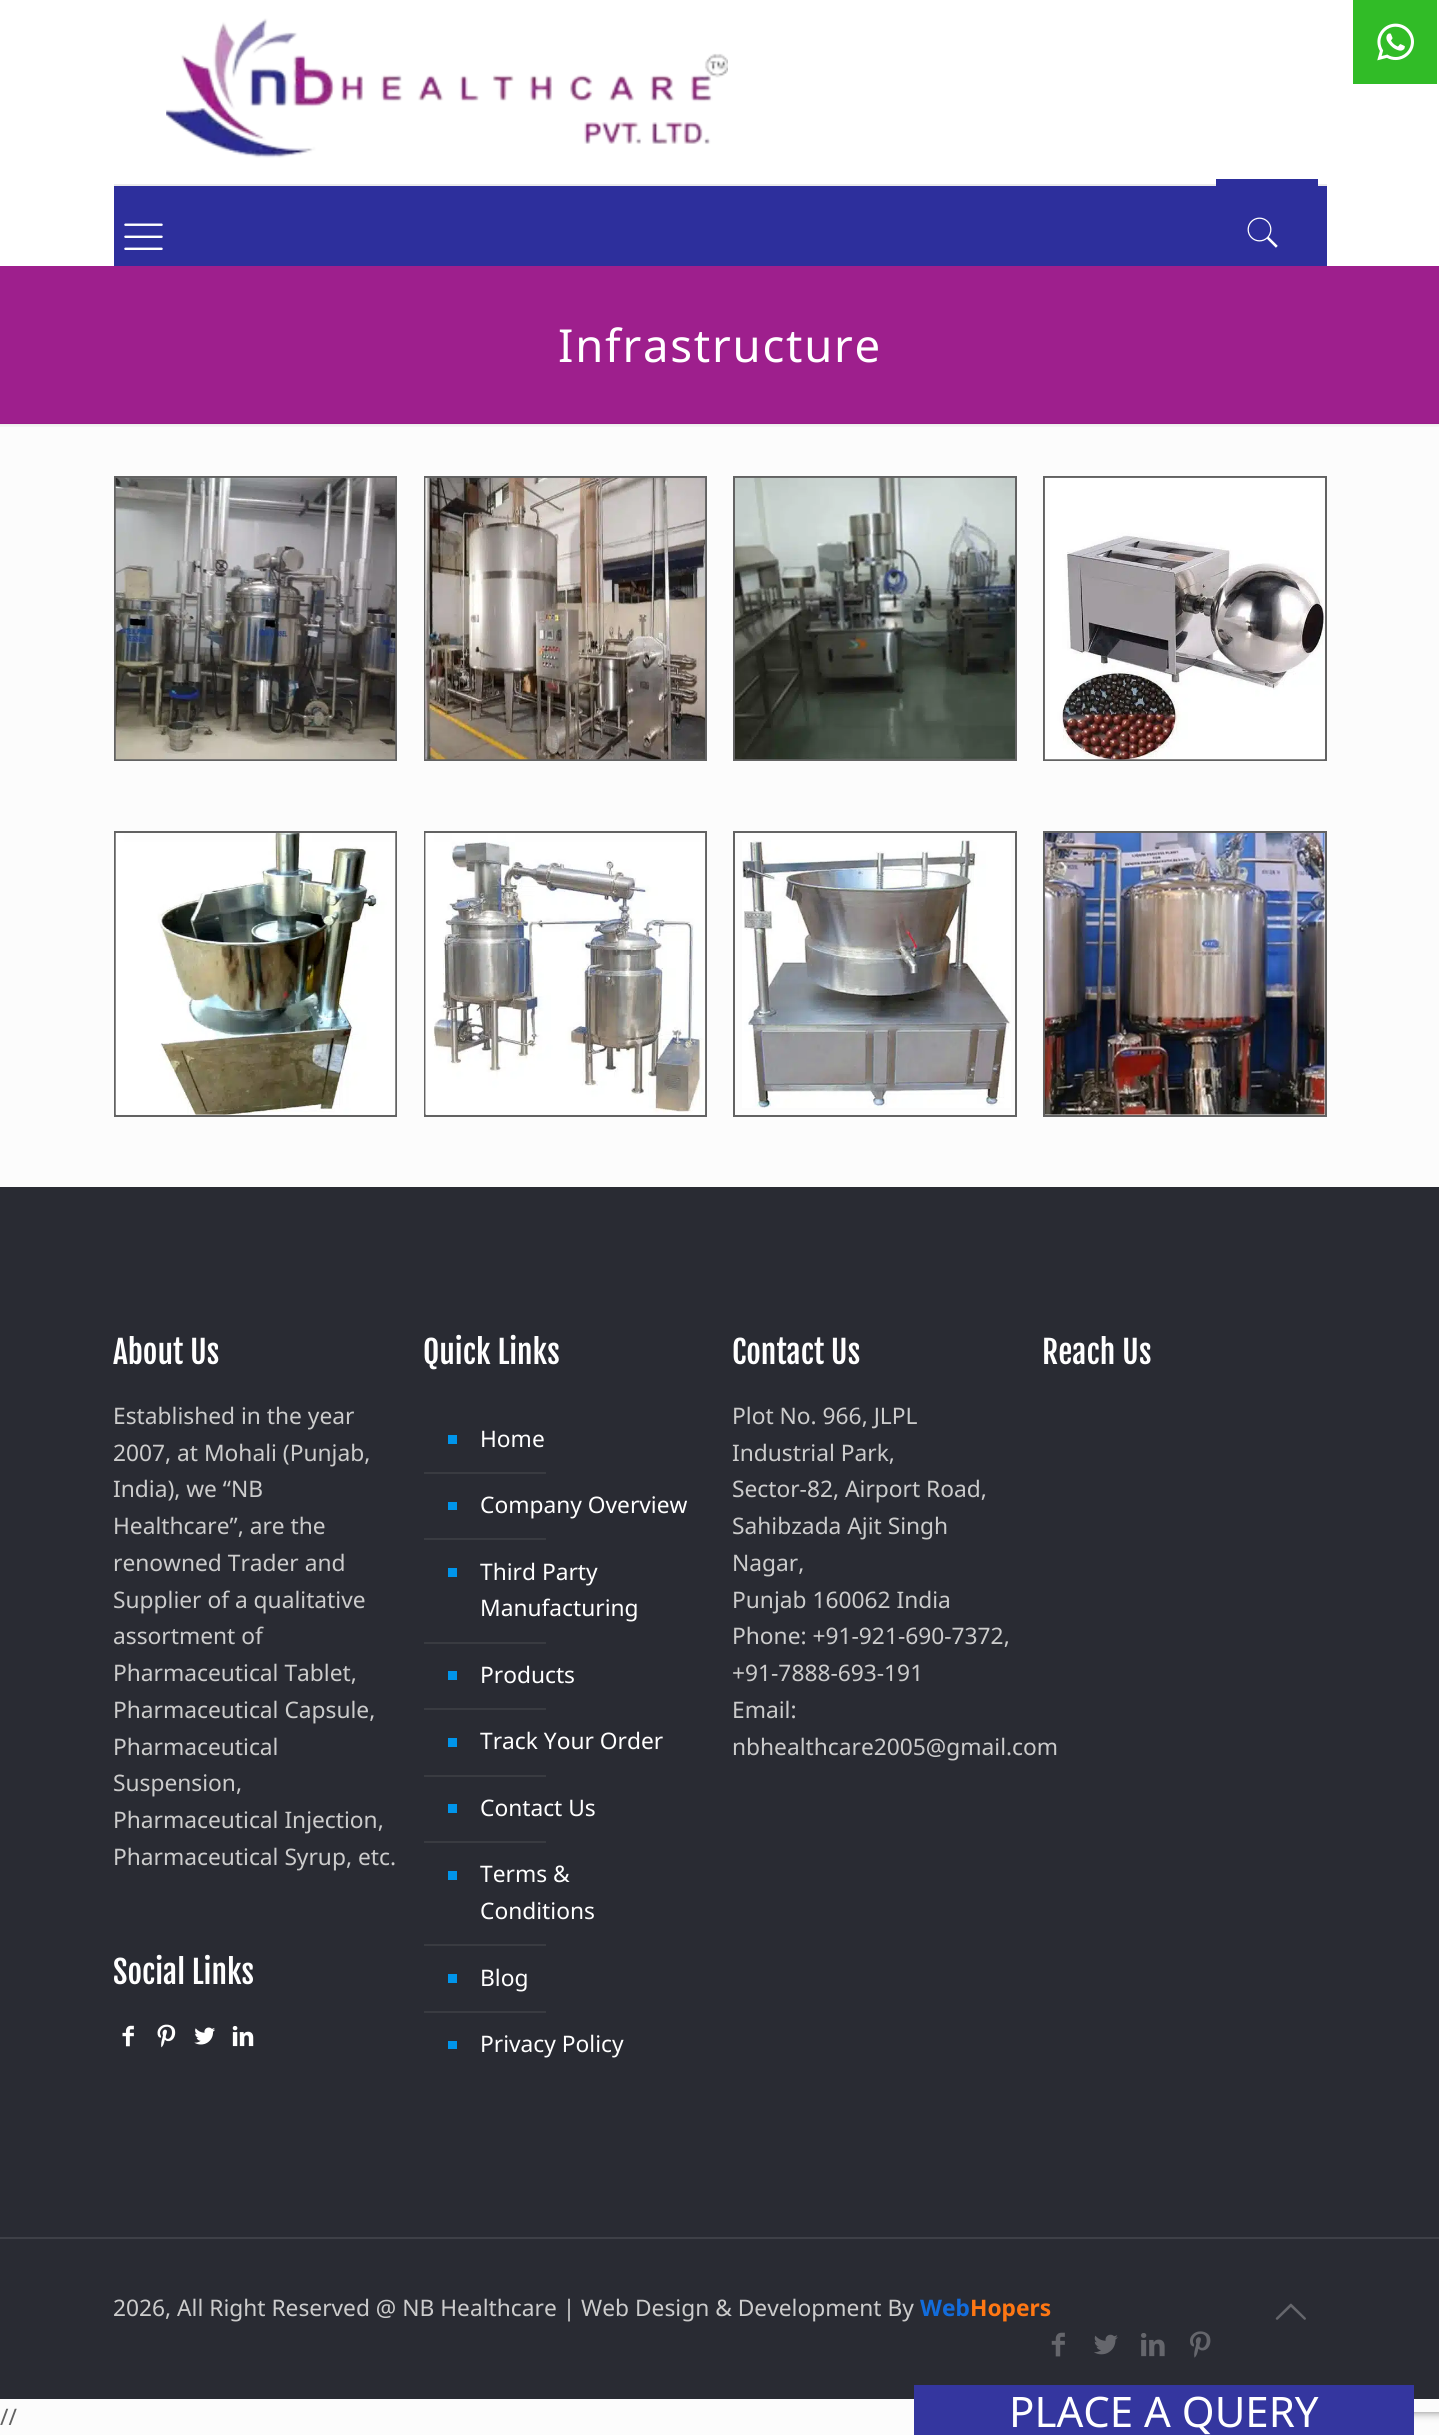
#include <cairo.h>
#include <math.h>
#include <stddef.h>

typedef struct { const char *family; double size; int italic, bold; unsigned color; } style_t;
static cairo_t *ctx;

static void ink(unsigned color) {
    cairo_set_source_rgb(ctx, (color >> 16) / 255.0, (color >> 8 & 255) / 255.0, (color & 255) / 255.0);
}

static void write(double x, double y, const char *s, const style_t *st) {
    cairo_select_font_face(ctx, st->family, st->italic ? CAIRO_FONT_SLANT_ITALIC : CAIRO_FONT_SLANT_NORMAL,
        st->bold ? CAIRO_FONT_WEIGHT_BOLD : CAIRO_FONT_WEIGHT_NORMAL);
    cairo_set_font_size(ctx, st->size);
    ink(st->color);
    cairo_move_to(ctx, x, y);
    cairo_show_text(ctx, s);
}

static void write_spaced(double x, double y, const char *s, double letter, double word) {
    cairo_move_to(ctx, x, y);
    while (*s) {
        char ch[5] = {0};
        int n = 0;
        do ch[n++] = *s++; while ((*s & 0xC0) == 0x80);
        cairo_show_text(ctx, ch);
        cairo_rel_move_to(ctx, letter + word * (*ch == ' '), 0);
    }
}

static void block(double x, double y, double w, double h, unsigned color) {
    ink(color);
    cairo_rectangle(ctx, x, y, w, h);
    cairo_fill(ctx);
}

static void round_path(double x, double y, double w, double h, double r) {
    cairo_new_sub_path(ctx);
    cairo_arc(ctx, x + w - r, y + h - r, r, 0, M_PI / 2);
    cairo_arc(ctx, x + r, y + h - r, r, M_PI / 2, M_PI);
    cairo_arc(ctx, x + r, y + r, r, M_PI, 1.5 * M_PI);
    cairo_arc(ctx, x + w - r, y + r, r, 1.5 * M_PI, 2 * M_PI);
    cairo_close_path(ctx);
}

static void blur_box(double x, double y, double w, double h, double r, double blur, double alpha) {
    cairo_push_group_with_content(ctx, CAIRO_CONTENT_ALPHA);
    cairo_set_operator(ctx, CAIRO_OPERATOR_SOURCE);
    for (int i = 15; i >= -15 && fmin(w, h) + blur * i / 3 > 0; i -= 2) {
        double e = blur * i / 6;
        cairo_set_source_rgba(ctx, 0, 0, 0, alpha * erfc((i - 1) / 8.5) / 2);
        round_path(x - e, y - e, w + 2 * e, h + 2 * e, fmax(0, fmin(r + e + blur * .6, fmin(w, h) / 2 + e)));
        cairo_fill(ctx);
    }
    cairo_pattern_t *soft = cairo_pop_group(ctx);
    cairo_mask(ctx, soft);
    cairo_pattern_destroy(soft);
}

static void paste(const char *path, double x, double y, double w, double h) {
    cairo_surface_t *image = cairo_image_surface_create_from_png(path);
    cairo_save(ctx);
    cairo_set_source_surface(ctx, image, x, y);
    cairo_rectangle(ctx, x, y, w, h);
    cairo_fill(ctx);
    cairo_restore(ctx);
    cairo_surface_destroy(image);
}

static const style_t s1 = {"Fjalla One", 31.5, 0, 0, 0xffffff};
static const style_t s2 = {"Noto Sans", 22.75, 0, 0, 0xcccccc};
static const style_t s3 = {"Noto Sans", 22.75, 0, 0, 0xffffff};
static const style_t s4 = {"Noto Sans", 22.75, 0, 1, 0x126cdc};
static const style_t s5 = {"Noto Sans", 22.75, 0, 1, 0xff7713};
static const style_t s6 = {"Noto Sans", 22.75, 0, 0, 0x626262};
static const style_t s7 = {"Noto Sans", 42, 0, 0, 0xffffff};

int main(void) {
    cairo_surface_t *surface = cairo_image_surface_create(CAIRO_FORMAT_RGB24, 1439, 2435);
    ctx = cairo_create(surface);
    cairo_font_options_t *options = cairo_font_options_create();
    cairo_font_options_set_hint_metrics(options, CAIRO_HINT_METRICS_OFF);
    cairo_font_options_set_hint_style(options, CAIRO_HINT_STYLE_NONE);
    cairo_set_font_options(ctx, options);
    cairo_set_miter_limit(ctx, 4);
    ink(0xfcfcfc);
    cairo_paint(ctx);
    block(0, 0, 1439, 266, 0xffffff);
    block(1353, 0, 84, 84, 0x31bc27);
    paste("pic1.png", 1377, 23, 37, 38);
    block(114, 184, 1213, 2, 0xebebeb);
    paste("pic2.png", 166, 18, 562, 140);
    block(114, 186, 1213, 80, 0x2d2f9c);
    paste("pic3.png", 124, 223, 39, 27);
    block(1216, 179, 102, 7, 0x2d2f9c);
    paste("pic4.png", 1247, 217, 31, 31);
    block(0, 266, 1439, 158, 0x9e1f8d);
    cairo_select_font_face(ctx, "Noto Sans", CAIRO_FONT_SLANT_NORMAL, CAIRO_FONT_WEIGHT_NORMAL);
    cairo_set_font_size(ctx, 45.5);
    ink(0xffffff);
    write_spaced(558, 362, "Infrastructure", 1.75, 0);
    paste("pic5.png", 0, 423, 1439, 4);
    cairo_rectangle(ctx, 115, 477, 281, 283);
    ink(0x626262);
    cairo_stroke(ctx);
    paste("pic6.png", 115, 477, 281, 283);
    cairo_rectangle(ctx, 425, 477, 281, 283);
    cairo_stroke(ctx);
    paste("pic7.png", 425, 477, 281, 283);
    cairo_rectangle(ctx, 734, 477, 282, 283);
    cairo_stroke(ctx);
    paste("pic8.png", 735, 477, 280, 283);
    cairo_rectangle(ctx, 1044, 477, 282, 283);
    cairo_stroke(ctx);
    paste("pic9.png", 1044, 477, 281, 283);
    cairo_rectangle(ctx, 115, 832, 281, 284);
    cairo_stroke(ctx);
    paste("pic10.png", 115, 833, 281, 282);
    cairo_rectangle(ctx, 425, 832, 281, 284);
    cairo_stroke(ctx);
    paste("pic11.png", 425, 833, 281, 282);
    cairo_rectangle(ctx, 734, 832, 282, 284);
    cairo_stroke(ctx);
    paste("pic12.png", 742, 840, 269, 268);
    cairo_rectangle(ctx, 1044, 832, 282, 284);
    cairo_stroke(ctx);
    paste("pic13.png", 1044, 833, 281, 282);
    cairo_save(ctx);
    cairo_set_fill_rule(ctx, CAIRO_FILL_RULE_EVEN_ODD);
    cairo_new_path(ctx);
    cairo_move_to(ctx, 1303, 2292);
    cairo_line_to(ctx, 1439, 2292);
    cairo_line_to(ctx, 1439, 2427);
    cairo_line_to(ctx, 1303, 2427);
    cairo_close_path(ctx);
    cairo_move_to(ctx, 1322, 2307);
    cairo_line_to(ctx, 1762, 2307);
    cairo_curve_to(ctx, 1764, 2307, 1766, 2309, 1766, 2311);
    cairo_line_to(ctx, 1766, 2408);
    cairo_curve_to(ctx, 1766, 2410, 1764, 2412, 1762, 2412);
    cairo_line_to(ctx, 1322, 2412);
    cairo_curve_to(ctx, 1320, 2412, 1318, 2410, 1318, 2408);
    cairo_line_to(ctx, 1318, 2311);
    cairo_curve_to(ctx, 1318, 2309, 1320, 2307, 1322, 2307);
    cairo_close_path(ctx);
    cairo_clip(ctx);
    ink(0x808080);
    blur_box(1318, 2307, 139, 105, 4, 4.5, 1);
    cairo_restore(ctx);
    block(0, 1187, 1439, 1212, 0x292b33);
    write(113, 1364, "About Us", &s1);
    write(113, 1424, "Established in the year", &s2);
    write(113, 1461, "2007, at Mohali (Punjab,", &s2);
    write(113, 1497, "India), we “NB", &s2);
    write(113, 1534, "Healthcare”, are the", &s2);
    write(113, 1571, "renowned Trader and", &s2);
    write(113, 1608, "Supplier of a qualitative", &s2);
    write(113, 1644, "assortment of", &s2);
    write(113, 1681, "Pharmaceutical Tablet,", &s2);
    write(113, 1718, "Pharmaceutical Capsule,", &s2);
    write(113, 1755, "Pharmaceutical", &s2);
    write(113, 1791, "Suspension,", &s2);
    write(113, 1828, "Pharmaceutical Injection,", &s2);
    write(113, 1865, "Pharmaceutical Syrup, etc.", &s2);
    write(113, 1984, "Social Links", &s1);
    paste("pic14.png", 122, 2025, 12, 22);
    paste("pic15.png", 157, 2024, 19, 24);
    paste("pic16.png", 194, 2027, 21, 18);
    paste("pic17.png", 232, 2026, 22, 21);
    write(423, 1364, "Quick Links", &s1);
    block(448, 1435, 9, 9, 0x0095eb);
    write(480, 1447, "Home", &s3);
    block(424, 1472, 122, 2, 0x393b41);
    block(448, 1502, 9, 8, 0x0095eb);
    write(480, 1513, "Company Overview", &s3);
    block(424, 1538, 122, 2, 0x393b41);
    block(448, 1568, 9, 9, 0x0095eb);
    write(480, 1580, "Third Party", &s3);
    write(480, 1616, "Manufacturing", &s3);
    block(424, 1642, 122, 2, 0x393b41);
    block(448, 1671, 9, 9, 0x0095eb);
    write(480, 1683, "Products", &s3);
    block(424, 1708, 122, 2, 0x393b41);
    block(448, 1738, 9, 9, 0x0095eb);
    write(480, 1749, "Track Your Order", &s3);
    block(424, 1775, 122, 2, 0x393b41);
    block(448, 1804, 9, 9, 0x0095eb);
    write(480, 1816, "Contact Us", &s3);
    block(424, 1841, 122, 2, 0x393b41);
    block(448, 1871, 9, 9, 0x0095eb);
    write(480, 1882, "Terms &", &s3);
    write(480, 1919, "Conditions", &s3);
    block(424, 1944, 122, 2, 0x393b41);
    block(448, 1974, 9, 9, 0x0095eb);
    write(480, 1986, "Blog", &s3);
    block(424, 2011, 122, 2, 0x393b41);
    block(448, 2041, 9, 8, 0x0095eb);
    write(480, 2052, "Privacy Policy", &s3);
    write(732, 1364, "Contact Us", &s1);
    write(732, 1424, "Plot No. 966, JLPL", &s2);
    write(732, 1461, "Industrial Park,", &s2);
    write(732, 1497, "Sector-82, Airport Road,", &s2);
    write(732, 1534, "Sahibzada Ajit Singh", &s2);
    write(732, 1571, "Nagar,", &s2);
    write(732, 1608, "Punjab 160062 India", &s2);
    write(732, 1644, "Phone: +91-921-690-7372,", &s2);
    write(732, 1681, "+91-7888-693-191", &s2);
    write(732, 1718, "Email:", &s2);
    write(732, 1755, "nbhealthcare2005@gmail.com", &s2);
    write(1042, 1364, "Reach Us", &s1);
    block(0, 2237, 1439, 2, 0x3e4047);
    write(113, 2316, "2026, All Right Reserved @ NB Healthcare | Web Design & Development By", &s2);
    write(920, 2316, "Web", &s4);
    write(970, 2316, "Hopers", &s5);
    paste("pic18.png", 1275, 2303, 31, 17);
    paste("pic19.png", 1051, 2332, 14, 25);
    paste("pic20.png", 1094, 2334, 24, 21);
    paste("pic21.png", 1141, 2333, 24, 24);
    paste("pic22.png", 1190, 2331, 21, 27);
    write(0, 2425, "//", &s6);
    block(914, 2385, 500, 50, 0x34369f);
    write(1009, 2427, "PLACE A QUERY", &s7);
    cairo_surface_write_to_png(surface, "screenshot.png");
    cairo_font_options_destroy(options);
    cairo_destroy(ctx);
    cairo_surface_destroy(surface);
    return 0;
}
